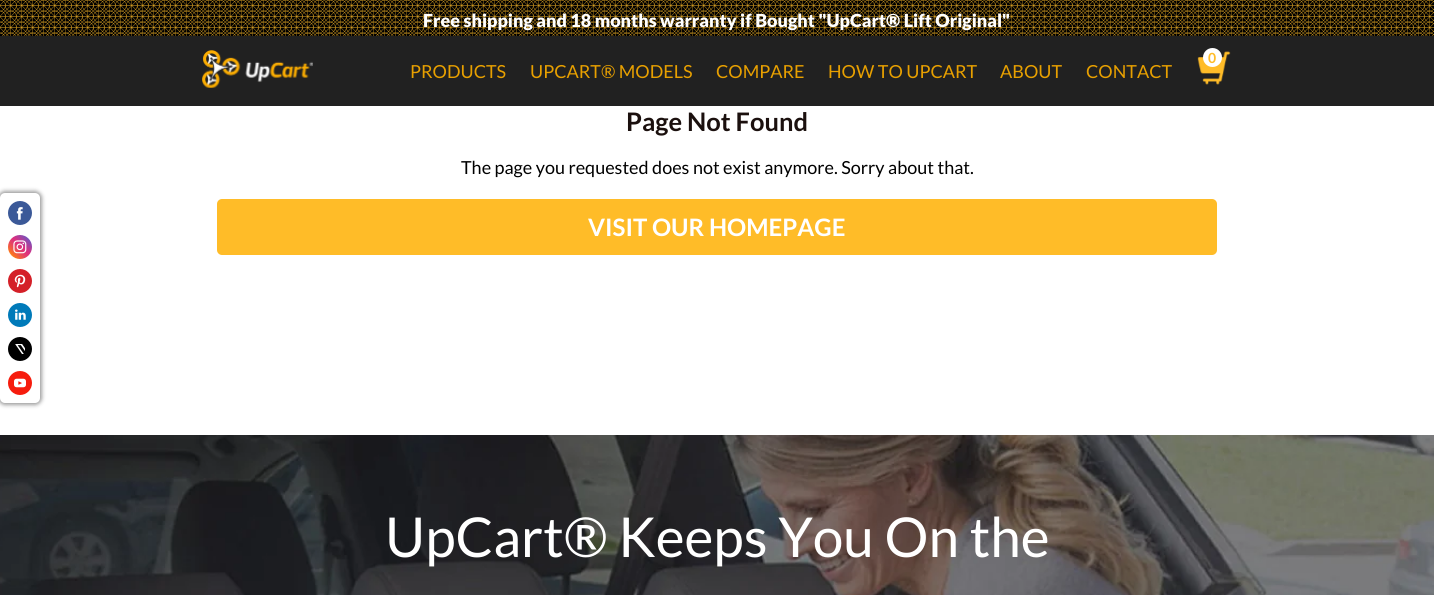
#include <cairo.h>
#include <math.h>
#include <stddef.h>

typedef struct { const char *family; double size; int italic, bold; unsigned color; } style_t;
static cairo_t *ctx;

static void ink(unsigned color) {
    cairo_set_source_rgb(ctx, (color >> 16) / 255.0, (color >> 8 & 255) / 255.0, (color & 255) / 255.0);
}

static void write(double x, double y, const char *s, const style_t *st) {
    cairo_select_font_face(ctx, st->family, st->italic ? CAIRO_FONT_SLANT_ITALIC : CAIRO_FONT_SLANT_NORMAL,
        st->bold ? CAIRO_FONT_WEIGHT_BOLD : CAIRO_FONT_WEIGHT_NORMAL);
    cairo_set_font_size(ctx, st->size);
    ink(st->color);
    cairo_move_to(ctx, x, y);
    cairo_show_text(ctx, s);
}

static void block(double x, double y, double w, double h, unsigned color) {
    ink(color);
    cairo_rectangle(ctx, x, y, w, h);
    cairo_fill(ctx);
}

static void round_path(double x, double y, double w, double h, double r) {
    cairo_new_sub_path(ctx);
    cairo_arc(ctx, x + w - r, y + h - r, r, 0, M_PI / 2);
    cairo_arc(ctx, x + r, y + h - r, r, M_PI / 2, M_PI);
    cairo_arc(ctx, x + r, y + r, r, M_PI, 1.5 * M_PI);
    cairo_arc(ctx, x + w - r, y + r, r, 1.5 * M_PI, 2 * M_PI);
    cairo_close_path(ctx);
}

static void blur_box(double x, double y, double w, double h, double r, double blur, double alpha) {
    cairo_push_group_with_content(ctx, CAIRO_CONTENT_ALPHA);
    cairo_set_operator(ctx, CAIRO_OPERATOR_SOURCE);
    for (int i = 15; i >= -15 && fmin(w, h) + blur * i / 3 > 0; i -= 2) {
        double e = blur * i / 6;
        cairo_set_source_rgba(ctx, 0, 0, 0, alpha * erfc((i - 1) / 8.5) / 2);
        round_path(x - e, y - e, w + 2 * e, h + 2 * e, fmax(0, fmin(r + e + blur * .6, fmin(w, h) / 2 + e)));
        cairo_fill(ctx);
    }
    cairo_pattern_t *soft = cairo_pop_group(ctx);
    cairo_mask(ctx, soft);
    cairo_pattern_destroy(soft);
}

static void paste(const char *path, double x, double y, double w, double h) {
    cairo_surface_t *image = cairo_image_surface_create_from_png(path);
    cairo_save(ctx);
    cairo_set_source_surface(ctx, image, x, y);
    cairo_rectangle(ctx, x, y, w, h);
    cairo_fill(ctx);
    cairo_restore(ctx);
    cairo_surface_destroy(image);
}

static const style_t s1 = {"Lato Black", 18, 0, 0, 0xffffff};
static const style_t s2 = {"Lato", 14, 0, 1, 0xffbc28};
static const style_t s3 = {"Lato", 18, 0, 0, 0xe8a000};
static const style_t s4 = {"Lato", 25.5, 0, 1, 0x1b100e};
static const style_t s5 = {"Lato", 18, 0, 0, 0x000000};
static const style_t s6 = {"Lato", 24, 0, 1, 0xffffff};
static const style_t s7 = {"Lato", 55, 0, 0, 0xffffff};

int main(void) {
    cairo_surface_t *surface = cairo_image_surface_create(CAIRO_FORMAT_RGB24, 1434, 595);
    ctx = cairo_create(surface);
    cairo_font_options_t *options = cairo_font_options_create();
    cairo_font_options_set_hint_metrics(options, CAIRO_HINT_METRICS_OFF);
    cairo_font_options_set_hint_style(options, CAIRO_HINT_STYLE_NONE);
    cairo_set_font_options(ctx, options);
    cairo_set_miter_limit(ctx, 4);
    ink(0xffffff);
    cairo_paint(ctx);
    ink(0x9e9e9e);
    blur_box(-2, 191, 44, 214, 7, 2, 1);
    ink(0xffffff);
    round_path(0, 193, 40, 210, 5);
    cairo_fill(ctx);
    paste("pic1.png", 8, 201, 24, 24);
    paste("pic2.png", 8, 235, 24, 24);
    paste("pic3.png", 8, 269, 24, 24);
    paste("pic4.png", 8, 303, 24, 24);
    paste("pic5.png", 8, 337, 24, 24);
    paste("pic6.png", 8, 371, 24, 24);
    block(0, 0, 1434, 36, 0x000000);
    paste("pic7.png", 0, 0, 1434, 36);
    write(423, 27, "Free shipping and 18 months warranty if Bought \"UpCart® Lift Original\"", &s1);
    block(0, 36, 1434, 70, 0x212121);
    paste("pic8.png", 202, 50, 111, 38);
    paste("pic9.png", 1197, 51, 34, 34);
    ink(0xffffff);
    cairo_arc(ctx, 1212.5, 57.5, 9.5, 0, 2 * M_PI);
    cairo_fill(ctx);
    write(1208, 63, "0", &s2);
    write(410, 78, "PRODUCTS", &s3);
    write(530, 78, "UPCART® MODELS", &s3);
    write(716, 78, "COMPARE", &s3);
    write(828, 78, "HOW TO UPCART", &s3);
    write(1000, 78, "ABOUT", &s3);
    write(1086, 78, "CONTACT", &s3);
    write(626, 131, "Page Not Found", &s4);
    write(461, 174, "The page you requested does not exist anymore. Sorry about that.", &s5);
    ink(0xffbc28);
    round_path(217, 199, 1000, 56, 5);
    cairo_fill(ctx);
    write(588, 236, "VISIT OUR HOMEPAGE", &s6);
    paste("pic10.png", 0, 435, 1434, 160);
    write(385, 557, "UpCart® Keeps You On the", &s7);
    cairo_surface_write_to_png(surface, "screenshot.png");
    cairo_font_options_destroy(options);
    cairo_destroy(ctx);
    cairo_surface_destroy(surface);
    return 0;
}
